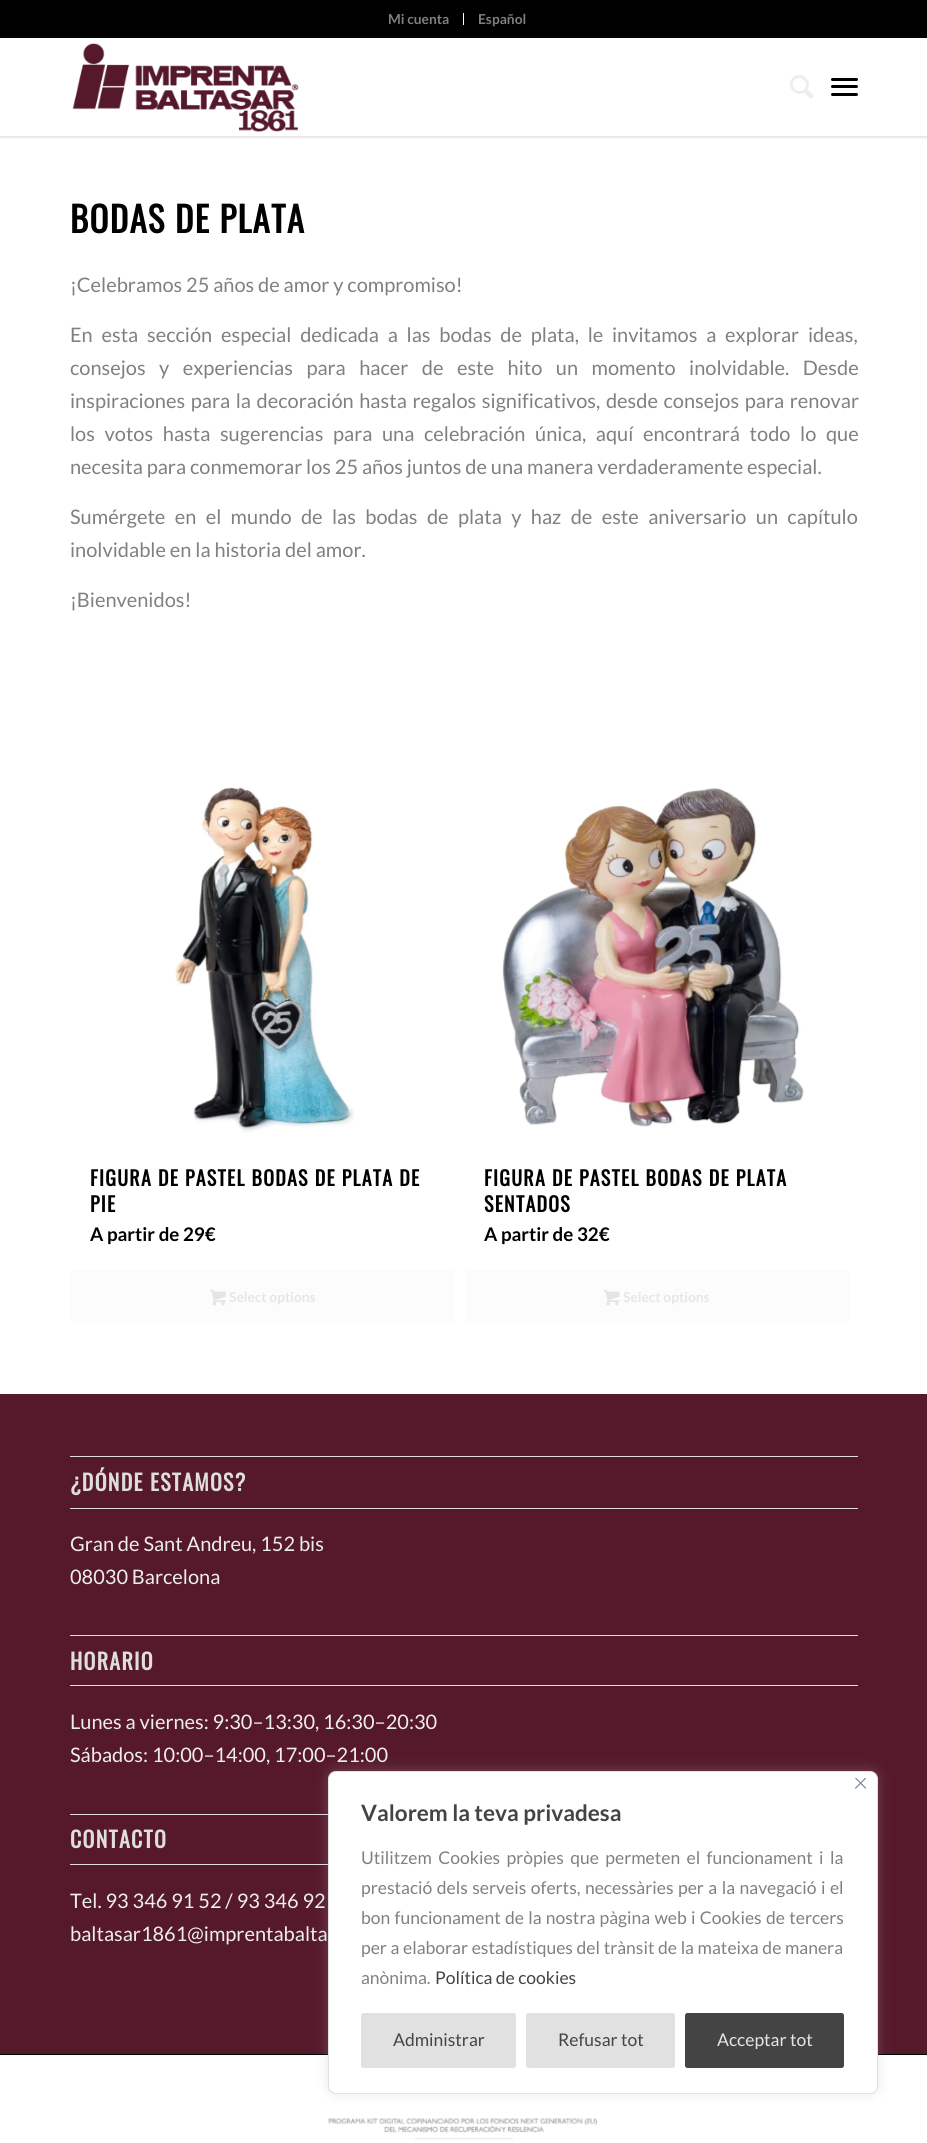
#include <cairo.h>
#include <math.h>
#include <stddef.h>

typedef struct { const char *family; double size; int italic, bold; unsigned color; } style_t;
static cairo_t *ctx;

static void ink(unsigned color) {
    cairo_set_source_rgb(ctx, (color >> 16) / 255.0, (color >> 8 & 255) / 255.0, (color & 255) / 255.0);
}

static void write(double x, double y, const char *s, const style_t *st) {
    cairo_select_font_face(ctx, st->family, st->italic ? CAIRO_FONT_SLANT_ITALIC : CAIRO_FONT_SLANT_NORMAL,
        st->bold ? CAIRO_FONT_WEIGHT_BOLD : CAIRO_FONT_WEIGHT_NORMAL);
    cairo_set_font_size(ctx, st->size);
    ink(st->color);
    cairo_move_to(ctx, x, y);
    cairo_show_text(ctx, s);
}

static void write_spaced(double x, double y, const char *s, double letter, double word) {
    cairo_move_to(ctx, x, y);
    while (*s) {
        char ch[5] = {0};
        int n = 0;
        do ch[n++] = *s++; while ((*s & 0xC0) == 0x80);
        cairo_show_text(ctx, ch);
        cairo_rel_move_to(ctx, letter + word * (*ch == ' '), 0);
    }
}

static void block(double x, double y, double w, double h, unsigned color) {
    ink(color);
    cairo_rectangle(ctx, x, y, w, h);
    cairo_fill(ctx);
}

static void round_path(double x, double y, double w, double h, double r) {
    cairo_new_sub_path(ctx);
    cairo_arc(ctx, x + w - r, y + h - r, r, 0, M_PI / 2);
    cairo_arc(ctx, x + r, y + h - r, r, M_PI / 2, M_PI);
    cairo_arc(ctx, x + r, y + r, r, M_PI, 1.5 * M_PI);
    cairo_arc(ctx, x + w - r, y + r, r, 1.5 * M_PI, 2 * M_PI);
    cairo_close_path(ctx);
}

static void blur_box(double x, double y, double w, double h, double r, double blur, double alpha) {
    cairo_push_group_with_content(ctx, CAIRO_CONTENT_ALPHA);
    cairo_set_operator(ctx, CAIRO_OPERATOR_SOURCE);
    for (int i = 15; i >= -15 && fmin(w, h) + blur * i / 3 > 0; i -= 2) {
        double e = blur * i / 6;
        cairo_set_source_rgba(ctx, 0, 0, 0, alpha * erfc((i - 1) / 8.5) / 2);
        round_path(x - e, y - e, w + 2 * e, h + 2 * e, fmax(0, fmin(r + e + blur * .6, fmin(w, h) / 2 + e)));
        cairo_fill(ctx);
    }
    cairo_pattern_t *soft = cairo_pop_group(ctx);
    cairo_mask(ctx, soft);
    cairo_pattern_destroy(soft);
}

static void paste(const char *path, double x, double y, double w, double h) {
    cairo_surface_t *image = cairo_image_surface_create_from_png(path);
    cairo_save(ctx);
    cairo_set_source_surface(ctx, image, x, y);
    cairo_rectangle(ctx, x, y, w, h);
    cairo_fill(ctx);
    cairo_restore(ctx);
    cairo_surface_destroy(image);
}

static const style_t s1 = {"Lato", 13.75, 0, 1, 0x808080};
static const style_t s2 = {"Lato", 20, 0, 0, 0x808080};
static const style_t s3 = {"Lato", 18.75, 0, 1, 0x000000};
static const style_t s4 = {"Lato", 13.75, 0, 1, 0xe6e6e6};
static const style_t s5 = {"Lato", 20, 0, 0, 0xeeeeee};
static const style_t s6 = {"Lato", 22.5, 0, 1, 0x444444};
static const style_t s7 = {"Lato", 17.5, 0, 0, 0x808080};
static const style_t s8 = {"Lato", 17.5, 0, 0, 0x444444};
static const style_t s9 = {"Lato", 17.5, 0, 0, 0xe6e6e6};

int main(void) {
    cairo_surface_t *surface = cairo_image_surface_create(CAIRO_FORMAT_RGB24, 927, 2143);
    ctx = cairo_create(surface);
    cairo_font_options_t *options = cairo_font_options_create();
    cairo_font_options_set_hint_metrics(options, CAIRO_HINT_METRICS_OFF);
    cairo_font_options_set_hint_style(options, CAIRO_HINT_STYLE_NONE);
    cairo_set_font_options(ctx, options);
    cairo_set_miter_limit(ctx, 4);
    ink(0xffffff);
    cairo_paint(ctx);
    cairo_save(ctx);
    cairo_rectangle(ctx, 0, 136, 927, 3);
    cairo_clip(ctx);
    ink(0x000000);
    blur_box(-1, -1, 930, 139, 0, 1, 0.1);
    cairo_restore(ctx);
    block(0, 0, 927, 38, 0x000000);
    block(463, 13, 1, 12, 0xffffff);
    write(388, 24, "Mi cuenta", &s1);
    write(478, 24, "Español", &s1);
    paste("pic1.png", 72, 43, 227, 89);
    paste("pic2.png", 790, 75, 24, 24);
    ink(0x000000);
    round_path(831, 85, 27, 3, 1.5);
    cairo_fill(ctx);
    round_path(831, 78, 27, 3, 1.5);
    cairo_fill(ctx);
    round_path(831, 93, 27, 3, 1.5);
    cairo_fill(ctx);
    cairo_select_font_face(ctx, "Oswald", CAIRO_FONT_SLANT_NORMAL, CAIRO_FONT_WEIGHT_BOLD);
    cairo_set_font_size(ctx, 35);
    write_spaced(70, 233, "BODAS DE PLATA", 1.25, 0);
    write(70, 292, "¡Celebramos 25 años de amor y compromiso!", &s2);
    write_spaced(70, 342, "En esta sección especial dedicada a las bodas de plata, le invitamos a explorar ideas,", 0, 4.9);
    write_spaced(70, 375, "consejos y experiencias para hacer de este hito un momento inolvidable. Desde", 0, 9.6);
    write_spaced(70, 408, "inspiraciones para la decoración hasta regalos significativos, desde consejos para renovar", 0, 1.75);
    write_spaced(70, 441, "los votos hasta sugerencias para una celebración única, aquí encontrará todo lo que", 0, 5.75);
    write(70, 474, "necesita para conmemorar los 25 años juntos de una manera verdaderamente especial.", &s2);
    write_spaced(70, 524, "Sumérgete en el mundo de las bodas de plata y haz de este aniversario un capítulo", 0, 5.5);
    write(70, 557, "inolvidable en la historia del amor.", &s2);
    write(70, 607, "¡Bienvenidos!", &s2);
    paste("pic3.png", 175, 787, 179, 346);
    cairo_select_font_face(ctx, "Oswald", CAIRO_FONT_SLANT_NORMAL, CAIRO_FONT_WEIGHT_BOLD);
    ink(0x000000);
    write_spaced(90, 1186, "FIGURA DE PASTEL BODAS DE PLATA DE", 1.25, 0);
    write_spaced(90, 1212, "PIE", 1.25, 0);
    write(90, 1241, "A partir de 29€", &s3);
    ink(0xfcfcfc);
    cairo_new_path(ctx);
    cairo_move_to(ctx, 71, 1269);
    cairo_line_to(ctx, 455, 1269);
    cairo_line_to(ctx, 455, 1322);
    cairo_curve_to(ctx, 455, 1322.5, 454.5, 1323, 454, 1323);
    cairo_line_to(ctx, 72, 1323);
    cairo_curve_to(ctx, 71.5, 1323, 71, 1322.5, 71, 1322);
    cairo_close_path(ctx);
    cairo_fill(ctx);
    block(71, 1269, 384, 1, 0xffffff);
    paste("pic4.png", 210, 1289, 16, 17);
    write(229, 1302, "Select options", &s4);
    paste("pic5.png", 502, 788, 302, 339);
    cairo_select_font_face(ctx, "Oswald", CAIRO_FONT_SLANT_NORMAL, CAIRO_FONT_WEIGHT_BOLD);
    cairo_set_font_size(ctx, 20);
    ink(0x000000);
    write_spaced(484, 1186, "FIGURA DE PASTEL BODAS DE PLATA", 1.25, 0);
    write_spaced(484, 1212, "SENTADOS", 1.25, 0);
    write(484, 1241, "A partir de 32€", &s3);
    ink(0xfcfcfc);
    cairo_new_path(ctx);
    cairo_move_to(ctx, 465, 1269);
    cairo_line_to(ctx, 849, 1269);
    cairo_line_to(ctx, 849, 1322);
    cairo_curve_to(ctx, 849, 1322.5, 848.5, 1323, 848, 1323);
    cairo_line_to(ctx, 466, 1323);
    cairo_curve_to(ctx, 465.5, 1323, 465, 1322.5, 465, 1322);
    cairo_close_path(ctx);
    cairo_fill(ctx);
    block(465, 1269, 384, 1, 0xffffff);
    paste("pic6.png", 603, 1289, 17, 17);
    write(623, 1302, "Select options", &s4);
    block(0, 1394, 927, 660, 0x55192a);
    block(70, 1456, 788, 1, 0xdedede);
    block(70, 1508, 788, 1, 0xdedede);
    cairo_select_font_face(ctx, "Oswald", CAIRO_FONT_SLANT_NORMAL, CAIRO_FONT_WEIGHT_BOLD);
    cairo_set_font_size(ctx, 22);
    write_spaced(70, 1491, "¿DÓNDE ESTAMOS?", 1.25, 0);
    write(70, 1551, "Gran de Sant Andreu, 152 bis", &s5);
    write(70, 1584, "08030 Barcelona", &s5);
    block(70, 1635, 788, 1, 0xdedede);
    block(70, 1685, 788, 1, 0xdedede);
    cairo_select_font_face(ctx, "Oswald", CAIRO_FONT_SLANT_NORMAL, CAIRO_FONT_WEIGHT_BOLD);
    cairo_set_font_size(ctx, 22);
    write_spaced(70, 1670, "HORARIO", 1.25, 0);
    write(70, 1729, "Lunes a viernes: 9:30–13:30, 16:30–20:30", &s5);
    write(70, 1762, "Sábados: 10:00–14:00, 17:00–21:00", &s5);
    block(70, 1814, 258, 1, 0xdedede);
    block(70, 1864, 258, 1, 0xdedede);
    cairo_select_font_face(ctx, "Oswald", CAIRO_FONT_SLANT_NORMAL, CAIRO_FONT_WEIGHT_BOLD);
    cairo_set_font_size(ctx, 22);
    write_spaced(70, 1848, "CONTACTO", 1.25, 0);
    write(70, 1908, "Tel. 93 346 91 52 / 93 346 92", &s5);
    write(70, 1941, "baltasar1861@imprentabalta", &s5);
    block(0, 2054, 927, 1, 0x000000);
    paste("pic7.png", 328, 2118, 270, 22);
    ink(0xacabab);
    blur_box(328, 1770, 550, 323, 8, 6, 0.3);
    ink(0xffffff);
    round_path(328.5, 1771.5, 549, 322, 7.5);
    cairo_fill_preserve(ctx);
    ink(0xe1e1e1);
    cairo_set_line_width(ctx, 1);
    cairo_stroke(ctx);
    paste("pic8.png", 855, 1778, 11, 11);
    write(361, 1821, "Valorem la teva privadesa", &s6);
    cairo_select_font_face(ctx, "Lato", CAIRO_FONT_SLANT_NORMAL, CAIRO_FONT_WEIGHT_NORMAL);
    cairo_set_font_size(ctx, 17.5);
    ink(0x808080);
    write_spaced(361, 1864, "Utilitzem Cookies pròpies que permeten el funcionament i la", 0, 3);
    write_spaced(361, 1894, "prestació dels serveis oferts, necessàries per a la navegació i el", 0, 1.1);
    write_spaced(361, 1924, "bon funcionament de la nostra pàgina web i Cookies de tercers", 0, 0.9);
    write_spaced(361, 1954, "per a elaborar estadístiques del trànsit de la mateixa de manera", 0, 0.25);
    write(361, 1984, "anònima.", &s7);
    write(435, 1984, "Política de cookies", &s8);
    ink(0xe1e1e1);
    round_path(362.5, 2014.5, 152, 52, 1);
    cairo_fill_preserve(ctx);
    cairo_set_line_width(ctx, 3);
    cairo_stroke(ctx);
    write(393, 2046, "Administrar", &s8);
    ink(0xe1e1e1);
    round_path(527.5, 2014.5, 146, 52, 1);
    cairo_fill_preserve(ctx);
    cairo_stroke(ctx);
    write(558, 2046, "Refusar tot", &s8);
    round_path(686.5, 2014.5, 156, 52, 1);
    cairo_fill_preserve(ctx);
    cairo_stroke(ctx);
    write(717, 2046, "Acceptar tot", &s9);
    cairo_surface_write_to_png(surface, "screenshot.png");
    cairo_font_options_destroy(options);
    cairo_destroy(ctx);
    cairo_surface_destroy(surface);
    return 0;
}
